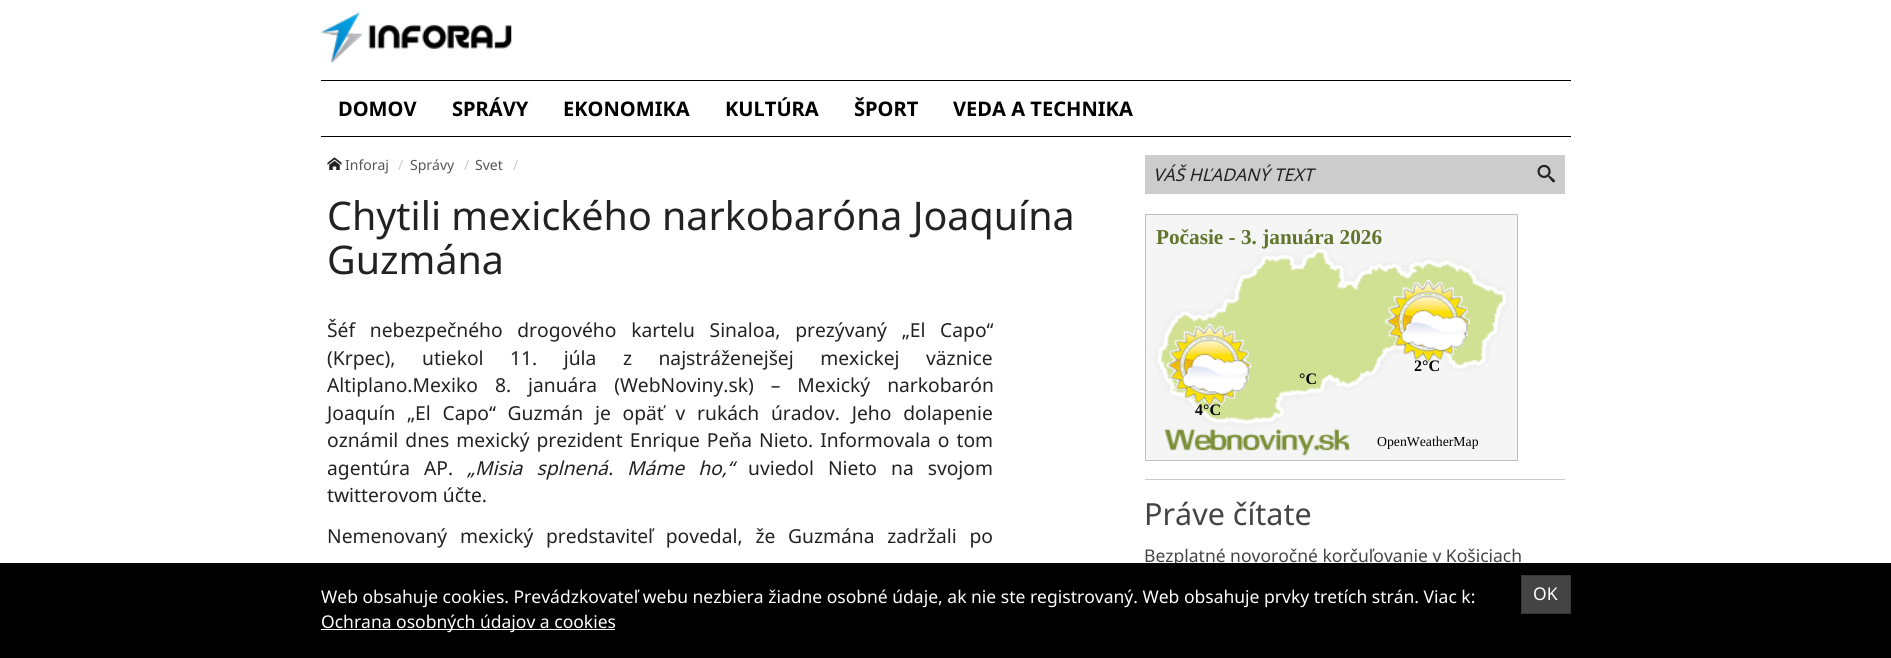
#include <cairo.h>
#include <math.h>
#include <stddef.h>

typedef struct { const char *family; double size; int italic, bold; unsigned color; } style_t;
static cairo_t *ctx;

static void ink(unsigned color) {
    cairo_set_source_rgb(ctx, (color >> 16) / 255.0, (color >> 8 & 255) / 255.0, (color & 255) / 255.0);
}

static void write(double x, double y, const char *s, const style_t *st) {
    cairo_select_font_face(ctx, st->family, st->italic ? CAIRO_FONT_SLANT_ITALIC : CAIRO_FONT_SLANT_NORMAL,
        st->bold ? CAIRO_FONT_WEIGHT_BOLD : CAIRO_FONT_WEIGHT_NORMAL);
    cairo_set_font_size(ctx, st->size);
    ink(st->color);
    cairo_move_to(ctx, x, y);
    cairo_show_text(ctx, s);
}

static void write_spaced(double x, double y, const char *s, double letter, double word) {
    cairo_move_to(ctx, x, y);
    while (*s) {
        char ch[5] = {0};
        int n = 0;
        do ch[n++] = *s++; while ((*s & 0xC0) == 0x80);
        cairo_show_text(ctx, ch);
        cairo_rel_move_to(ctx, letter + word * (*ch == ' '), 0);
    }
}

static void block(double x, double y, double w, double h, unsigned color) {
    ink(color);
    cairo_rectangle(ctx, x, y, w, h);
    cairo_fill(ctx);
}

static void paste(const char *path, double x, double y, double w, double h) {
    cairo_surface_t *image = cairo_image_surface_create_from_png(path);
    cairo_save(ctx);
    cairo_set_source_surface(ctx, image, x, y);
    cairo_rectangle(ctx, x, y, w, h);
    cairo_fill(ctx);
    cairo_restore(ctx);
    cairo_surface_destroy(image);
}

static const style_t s1 = {"Noto Sans", 20.1, 0, 1, 0x000000};
static const style_t s2 = {"Noto Sans", 14, 0, 0, 0x555555};
static const style_t s3 = {"Noto Sans", 14, 0, 0, 0xcccccc};
static const style_t s4 = {"Noto Sans", 39.4, 0, 0, 0x222222};
static const style_t s5 = {"Noto Sans", 19.25, 0, 0, 0x222222};
static const style_t s6 = {"Noto Sans", 17.5, 1, 0, 0x222222};
static const style_t s7 = {"Liberation Serif", 21.25, 0, 1, 0x61752c};
static const style_t s8 = {"Liberation Serif", 16, 0, 1, 0x000000};
static const style_t s9 = {"Liberation Serif", 13.75, 0, 0, 0x000000};
static const style_t s10 = {"Noto Sans", 30.5, 0, 0, 0x444444};
static const style_t s11 = {"Noto Sans", 17.5, 0, 0, 0x444444};
static const style_t s12 = {"Noto Sans", 17.5, 0, 0, 0xffffff};

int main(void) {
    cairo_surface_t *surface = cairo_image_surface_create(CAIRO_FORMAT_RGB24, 1891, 658);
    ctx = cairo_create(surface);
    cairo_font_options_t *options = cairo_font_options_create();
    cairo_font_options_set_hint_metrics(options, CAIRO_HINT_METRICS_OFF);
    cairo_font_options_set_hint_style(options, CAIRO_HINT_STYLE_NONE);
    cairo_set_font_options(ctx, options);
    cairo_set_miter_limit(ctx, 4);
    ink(0xffffff);
    cairo_paint(ctx);
    paste("pic1.png", 321, 12, 191, 51);
    block(321, 80, 1250, 1, 0x000000);
    block(321, 136, 1250, 1, 0x000000);
    write(338, 116, "DOMOV", &s1);
    write(452, 116, "SPRÁVY", &s1);
    write(563, 116, "EKONOMIKA", &s1);
    write(725, 116, "KULTÚRA", &s1);
    write(854, 116, "ŠPORT", &s1);
    write(953, 116, "VEDA A TECHNIKA", &s1);
    paste("pic2.png", 327, 157, 15, 13);
    write(345, 170, "Inforaj", &s2);
    write(398, 170, "/", &s3);
    write(410, 170, "Správy", &s2);
    write(464, 170, "/", &s3);
    write(475, 170, "Svet", &s2);
    write(513, 170, "/", &s3);
    write(327, 230, "Chytili mexického narkobaróna Joaquína", &s4);
    write(327, 274, "Guzmána", &s4);
    cairo_set_font_size(ctx, 19.25);
    write_spaced(327, 337, "Šéf nebezpečného drogového kartelu Sinaloa, prezývaný „El Capo“", 0, 9.75);
    write_spaced(327, 365, "(Krpec), utiekol 11. júla z najstráženejšej mexickej väznice", 0, 21.5);
    write_spaced(327, 392, "Altiplano.Mexiko 8. januára (WebNoviny.sk) – Mexický narkobarón", 0, 12);
    write_spaced(327, 420, "Joaquín „El Capo“ Guzmán je opäť v rukách úradov. Jeho dolapenie", 0, 6.75);
    write_spaced(327, 447, "oznámil dnes mexický prezident Enrique Peňa Nieto. Informovala o tom", 0, 2);
    write_spaced(327, 475, "agentúra AP.", 0, 9);
    cairo_select_font_face(ctx, "Noto Sans", CAIRO_FONT_SLANT_ITALIC, CAIRO_FONT_WEIGHT_NORMAL);
    write_spaced(467, 475, "„Misia splnená. Máme ho,“", 0, 9);
    cairo_select_font_face(ctx, "Noto Sans", CAIRO_FONT_SLANT_NORMAL, CAIRO_FONT_WEIGHT_NORMAL);
    write_spaced(748, 475, "uviedol Nieto na svojom", 0, 9);
    write(327, 502, "twitterovom účte.", &s5);
    write_spaced(327, 543, "Nemenovaný mexický predstaviteľ povedal, že Guzmána zadržali po", 0, 7.75);
    block(1145, 155, 420, 39, 0xcccccc);
    write(1153, 181, "VÁŠ HĽADANÝ TEXT", &s6);
    paste("pic3.png", 1537, 164, 18, 19);
    block(1145, 479, 420, 1, 0xcccccc);
    paste("pic4.png", 1146, 215, 371, 245);
    cairo_rectangle(ctx, 1145.5, 214.5, 372, 246);
    ink(0xc0c0c0);
    cairo_set_line_width(ctx, 1);
    cairo_stroke(ctx);
    write(1156, 244, "Počasie - 3. januára 2026", &s7);
    paste("pic5.png", 1166, 323, 86, 85);
    paste("pic6.png", 1384, 279, 86, 85);
    write(1414, 371, "2°C", &s8);
    write(1299, 384, "°C", &s8);
    write(1195, 415, "4°C", &s8);
    write(1377, 446, "OpenWeatherMap", &s9);
    write(1144, 525, "Práve čítate", &s10);
    write(1144, 562, "Bezplatné novoročné korčuľovanie v Košiciach", &s11);
    block(0, 563, 1891, 95, 0x000000);
    write(321, 603, "Web obsahuje cookies. Prevádzkovateľ webu nezbiera žiadne osobné údaje, ak nie ste registrovaný. Web obsahuje prvky tretích strán. Viac k:", &s12);
    block(321, 629, 294, 1, 0xffffff);
    write(321, 628, "Ochrana osobných údajov a cookies", &s12);
    ink(0x444444);
    cairo_rectangle(ctx, 1521.5, 575.5, 49, 38);
    cairo_fill_preserve(ctx);
    ink(0x373737);
    cairo_stroke(ctx);
    write(1533, 600, "OK", &s12);
    cairo_surface_write_to_png(surface, "screenshot.png");
    cairo_font_options_destroy(options);
    cairo_destroy(ctx);
    cairo_surface_destroy(surface);
    return 0;
}
